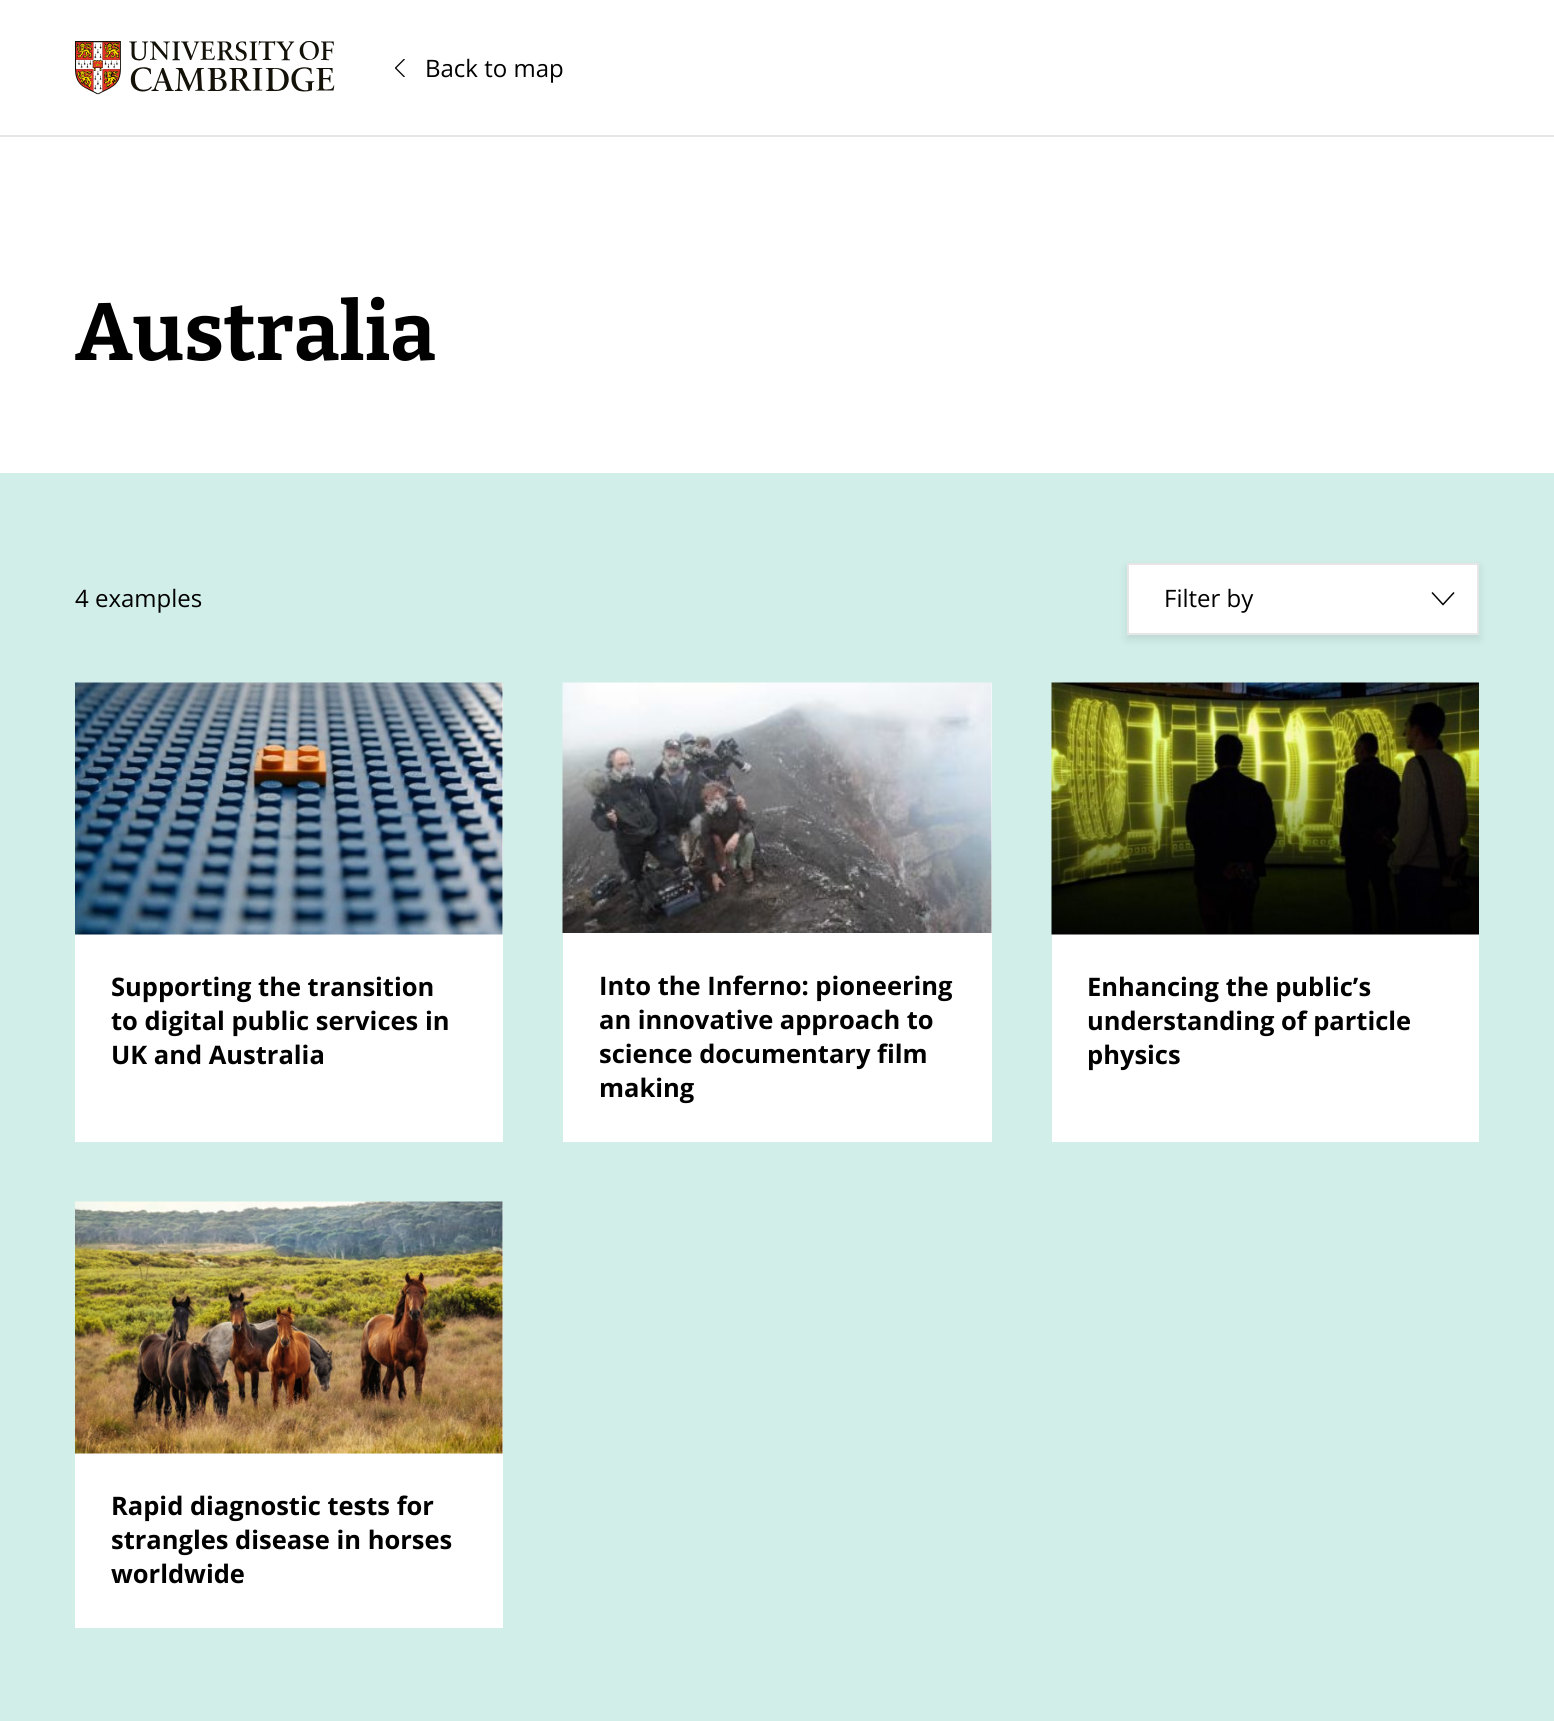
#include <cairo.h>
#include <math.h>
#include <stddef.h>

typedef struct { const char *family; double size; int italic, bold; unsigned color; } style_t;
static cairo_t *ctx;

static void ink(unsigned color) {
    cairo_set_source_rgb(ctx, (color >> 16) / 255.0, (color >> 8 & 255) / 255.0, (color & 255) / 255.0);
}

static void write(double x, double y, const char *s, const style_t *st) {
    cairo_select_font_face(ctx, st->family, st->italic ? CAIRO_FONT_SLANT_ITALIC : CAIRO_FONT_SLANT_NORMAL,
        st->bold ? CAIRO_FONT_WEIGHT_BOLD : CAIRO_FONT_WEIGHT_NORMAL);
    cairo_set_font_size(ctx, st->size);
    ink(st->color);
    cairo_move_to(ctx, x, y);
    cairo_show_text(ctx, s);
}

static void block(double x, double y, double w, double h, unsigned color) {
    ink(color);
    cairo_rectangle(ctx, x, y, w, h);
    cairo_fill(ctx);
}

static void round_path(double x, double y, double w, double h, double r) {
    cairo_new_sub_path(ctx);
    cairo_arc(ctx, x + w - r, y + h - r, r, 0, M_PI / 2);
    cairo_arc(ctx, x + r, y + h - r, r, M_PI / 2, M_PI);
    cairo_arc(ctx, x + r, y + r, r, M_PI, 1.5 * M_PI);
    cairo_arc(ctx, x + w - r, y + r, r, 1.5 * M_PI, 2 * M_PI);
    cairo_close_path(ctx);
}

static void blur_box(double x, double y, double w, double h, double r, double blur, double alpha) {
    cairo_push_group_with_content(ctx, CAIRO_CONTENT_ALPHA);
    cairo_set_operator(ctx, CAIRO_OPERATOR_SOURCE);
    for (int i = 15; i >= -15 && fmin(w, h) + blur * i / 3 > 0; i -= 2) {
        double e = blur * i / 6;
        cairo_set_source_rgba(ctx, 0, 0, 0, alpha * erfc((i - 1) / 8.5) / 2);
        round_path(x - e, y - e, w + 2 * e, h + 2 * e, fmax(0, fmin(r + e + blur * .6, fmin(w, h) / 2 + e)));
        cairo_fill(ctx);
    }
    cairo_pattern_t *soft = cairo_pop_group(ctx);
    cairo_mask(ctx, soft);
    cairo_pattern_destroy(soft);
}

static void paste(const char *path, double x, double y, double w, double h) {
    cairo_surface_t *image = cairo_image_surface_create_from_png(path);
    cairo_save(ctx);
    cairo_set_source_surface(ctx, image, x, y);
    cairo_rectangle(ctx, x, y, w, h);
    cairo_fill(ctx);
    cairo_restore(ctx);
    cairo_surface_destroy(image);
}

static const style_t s1 = {"Open Sans", 24, 0, 0, 0x000000};
static const style_t s2 = {"Bitter Thin", 81, 0, 0, 0x000000};
static const style_t s3 = {"Open Sans", 25.5, 0, 1, 0x000000};

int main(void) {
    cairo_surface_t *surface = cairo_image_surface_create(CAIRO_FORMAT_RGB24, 1554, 1721);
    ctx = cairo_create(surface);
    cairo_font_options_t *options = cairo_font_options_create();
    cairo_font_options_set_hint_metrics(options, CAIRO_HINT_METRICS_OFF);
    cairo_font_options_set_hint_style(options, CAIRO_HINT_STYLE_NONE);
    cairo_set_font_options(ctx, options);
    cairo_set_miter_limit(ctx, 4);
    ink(0xffffff);
    cairo_paint(ctx);
    block(0, 135, 1554, 2, 0xe6e6e6);
    paste("pic1.png", 75, 41, 260, 54);
    cairo_save(ctx);
    cairo_rectangle(ctx, 395, 59, 10, 18);
    cairo_clip(ctx);
    cairo_new_path(ctx);
    cairo_move_to(ctx, 404.5, 77);
    cairo_line_to(ctx, 395.5, 68);
    cairo_line_to(ctx, 404.5, 59);
    ink(0x000000);
    cairo_set_line_width(ctx, 1.3);
    cairo_stroke(ctx);
    cairo_restore(ctx);
    write(425, 77, "Back to map", &s1);
    write(75, 360, "Australia", &s2);
    block(0, 473, 1554, 1248, 0xd1eee9);
    write(75, 607, "4 examples", &s1);
    ink(0x000000);
    blur_box(1127, 567, 352, 72, 0, 4.5, 0.1);
    ink(0xfefffe);
    cairo_rectangle(ctx, 1128, 564, 350, 70);
    cairo_fill_preserve(ctx);
    ink(0xe5e6e5);
    cairo_stroke(ctx);
    write(1164, 607, "Filter by", &s1);
    cairo_new_path(ctx);
    cairo_move_to(ctx, 1432, 592.5);
    cairo_line_to(ctx, 1443, 604.5);
    cairo_line_to(ctx, 1454, 592.5);
    cairo_set_line_width(ctx, 1.5);
    cairo_stroke(ctx);
    block(75, 683, 428, 459, 0xfefffe);
    paste("pic2.png", 75, 682, 428, 253);
    write(111, 996, "Supporting the transition", &s3);
    write(111, 1030, "to digital public services in", &s3);
    write(111, 1064, "UK and Australia", &s3);
    block(563, 683, 429, 459, 0xfefffe);
    paste("pic3.png", 562, 682, 430, 251);
    write(599, 995, "Into the Inferno: pioneering", &s3);
    write(599, 1029, "an innovative approach to", &s3);
    write(599, 1063, "science documentary film", &s3);
    write(599, 1097, "making", &s3);
    block(1052, 934, 427, 208, 0xfefffe);
    paste("pic4.png", 1051, 682, 428, 253);
    write(1087, 996, "Enhancing the public’s", &s3);
    write(1087, 1030, "understanding of particle", &s3);
    write(1087, 1064, "physics", &s3);
    block(75, 1202, 428, 426, 0xfefffe);
    paste("pic5.png", 75, 1201, 428, 253);
    write(111, 1515, "Rapid diagnostic tests for", &s3);
    write(111, 1549, "strangles disease in horses", &s3);
    write(111, 1583, "worldwide", &s3);
    cairo_surface_write_to_png(surface, "screenshot.png");
    cairo_font_options_destroy(options);
    cairo_destroy(ctx);
    cairo_surface_destroy(surface);
    return 0;
}
